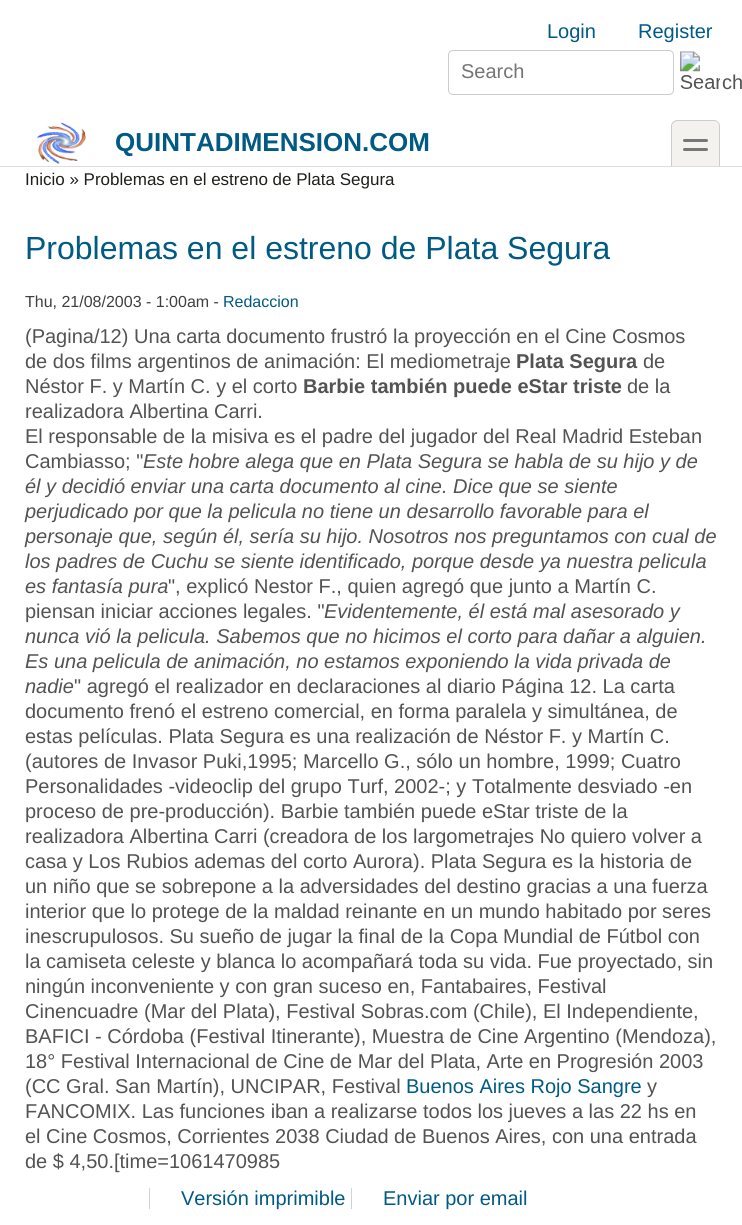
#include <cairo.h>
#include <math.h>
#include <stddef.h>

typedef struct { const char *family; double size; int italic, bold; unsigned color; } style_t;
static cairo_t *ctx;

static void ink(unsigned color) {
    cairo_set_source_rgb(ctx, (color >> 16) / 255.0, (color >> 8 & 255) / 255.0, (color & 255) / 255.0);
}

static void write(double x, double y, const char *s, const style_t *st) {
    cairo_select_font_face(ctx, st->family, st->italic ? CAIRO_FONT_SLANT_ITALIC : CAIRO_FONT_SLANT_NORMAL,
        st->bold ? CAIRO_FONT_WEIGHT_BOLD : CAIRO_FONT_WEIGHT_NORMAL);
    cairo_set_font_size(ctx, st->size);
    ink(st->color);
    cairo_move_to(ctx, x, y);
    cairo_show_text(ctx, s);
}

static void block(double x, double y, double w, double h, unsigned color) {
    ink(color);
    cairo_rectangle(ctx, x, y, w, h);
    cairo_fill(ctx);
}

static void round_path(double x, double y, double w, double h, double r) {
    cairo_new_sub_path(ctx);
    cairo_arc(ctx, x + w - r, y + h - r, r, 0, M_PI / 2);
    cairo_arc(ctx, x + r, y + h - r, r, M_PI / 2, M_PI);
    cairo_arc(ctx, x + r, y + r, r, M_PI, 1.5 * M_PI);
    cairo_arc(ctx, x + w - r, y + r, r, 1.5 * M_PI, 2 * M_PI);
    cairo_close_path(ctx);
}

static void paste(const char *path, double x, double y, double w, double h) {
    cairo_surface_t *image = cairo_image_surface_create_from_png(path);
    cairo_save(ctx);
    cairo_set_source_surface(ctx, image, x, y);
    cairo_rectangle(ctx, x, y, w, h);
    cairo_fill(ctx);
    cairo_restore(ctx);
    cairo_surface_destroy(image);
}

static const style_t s1 = {"Liberation Sans", 20, 0, 0, 0x005a84};
static const style_t s2 = {"Liberation Sans", 20, 0, 0, 0x757575};
static const style_t s3 = {"Liberation Sans", 20, 0, 0, 0x535353};
static const style_t s4 = {"Liberation Sans", 26, 0, 1, 0x005a84};
static const style_t s5 = {"Liberation Sans", 17, 0, 0, 0x1e201b};
static const style_t s6 = {"Liberation Sans", 32, 0, 0, 0x005a84};
static const style_t s7 = {"Liberation Sans", 16, 0, 0, 0x3f3f3f};
static const style_t s8 = {"Liberation Sans", 16, 0, 0, 0x005a84};
static const style_t s9 = {"Liberation Sans", 20, 0, 1, 0x535353};
static const style_t s10 = {"Liberation Sans", 20, 1, 0, 0x535353};

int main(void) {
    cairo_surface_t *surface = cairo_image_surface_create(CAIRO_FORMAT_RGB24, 742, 1225);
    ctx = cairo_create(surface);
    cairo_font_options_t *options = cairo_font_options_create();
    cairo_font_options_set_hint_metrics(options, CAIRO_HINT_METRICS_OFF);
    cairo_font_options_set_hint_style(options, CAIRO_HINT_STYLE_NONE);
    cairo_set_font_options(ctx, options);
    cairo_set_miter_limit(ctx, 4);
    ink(0xffffff);
    cairo_paint(ctx);
    write(547, 38, "Login", &s1);
    write(638, 38, "Register", &s1);
    round_path(448.5, 50.5, 225, 44, 4.5);
    ink(0xcccccc);
    cairo_set_line_width(ctx, 1);
    cairo_stroke(ctx);
    write(461, 78, "Search", &s2);
    paste("pic1.png", 680, 51, 40, 38);
    write(722, 89, "ch", &s3);
    block(0, 166, 742, 1, 0xdddddd);
    paste("pic2.png", 37, 122, 49, 43);
    write(115, 151, "QUINTADIMENSION.COM", &s4);
    ink(0xf4f2ee);
    cairo_new_path(ctx);
    cairo_move_to(ctx, 677, 120);
    cairo_line_to(ctx, 714, 120);
    cairo_curve_to(ctx, 717.5, 120, 720, 122.5, 720, 126);
    cairo_line_to(ctx, 720, 166);
    cairo_line_to(ctx, 671, 166);
    cairo_line_to(ctx, 671, 126);
    cairo_curve_to(ctx, 671, 122.5, 673.5, 120, 677, 120);
    cairo_close_path(ctx);
    cairo_fill(ctx);
    ink(0xcccccc);
    cairo_set_fill_rule(ctx, CAIRO_FILL_RULE_EVEN_ODD);
    cairo_new_path(ctx);
    cairo_move_to(ctx, 678, 120);
    cairo_line_to(ctx, 714, 120);
    cairo_curve_to(ctx, 717, 120, 720, 123, 720, 126);
    cairo_line_to(ctx, 720, 166);
    cairo_line_to(ctx, 671, 166);
    cairo_line_to(ctx, 671, 126);
    cairo_curve_to(ctx, 671, 123, 674, 120, 678, 120);
    cairo_close_path(ctx);
    cairo_move_to(ctx, 678, 121);
    cairo_line_to(ctx, 714, 121);
    cairo_curve_to(ctx, 717, 121, 719, 123, 719, 126);
    cairo_line_to(ctx, 719, 166);
    cairo_line_to(ctx, 672, 166);
    cairo_line_to(ctx, 672, 126);
    cairo_curve_to(ctx, 672, 123, 675, 121, 678, 121);
    cairo_close_path(ctx);
    cairo_fill(ctx);
    ink(0x777777);
    round_path(683, 139, 25, 3, 1.5);
    cairo_fill(ctx);
    round_path(683, 148, 25, 3, 1.5);
    cairo_fill(ctx);
    write(25, 185, "Inicio » Problemas en el estreno de Plata Segura", &s5);
    write(25, 259, "Problemas en el estreno de Plata Segura", &s6);
    write(25, 307, "Thu, 21/08/2003 - 1:00am -", &s7);
    write(223, 307, "Redaccion", &s8);
    write(25, 343, "(Pagina/12) Una carta documento frustró la proyección en el Cine Cosmos", &s3);
    write(25, 368, "de dos films argentinos de animación: El mediometraje", &s3);
    write(516, 368, "Plata Segura", &s9);
    write(643, 368, "de", &s3);
    write(25, 393, "Néstor F. y Martín C. y el corto", &s3);
    write(303, 393, "Barbie también puede eStar triste", &s9);
    write(627, 393, "de la", &s3);
    write(25, 418, "realizadora Albertina Carri.", &s3);
    write(25, 443, "El responsable de la misiva es el padre del jugador del Real Madrid Esteban", &s3);
    write(25, 468, "Cambiasso; \"", &s3);
    write(143, 468, "Este hobre alega que en Plata Segura se habla de su hijo y de", &s10);
    write(25, 493, "él y decidió enviar una carta documento al cine. Dice que se siente", &s10);
    write(25, 518, "perjudicado por que la pelicula no tiene un desarrollo favorable para el", &s10);
    write(25, 543, "personaje que, según él, sería su hijo. Nosotros nos preguntamos con cual de", &s10);
    write(25, 568, "los padres de Cuchu se siente identificado, porque desde ya nuestra pelicula", &s10);
    write(25, 593, "es fantasía pura", &s10);
    write(168, 593, "\", explicó Nestor F., quien agregó que junto a Martín C.", &s3);
    write(25, 618, "piensan iniciar acciones legales. \"", &s3);
    write(324, 618, "Evidentemente, él está mal asesorado y", &s10);
    write(25, 643, "nunca vió la pelicula. Sabemos que no hicimos el corto para dañar a alguien.", &s10);
    write(25, 668, "Es una pelicula de animación, no estamos exponiendo la vida privada de", &s10);
    write(25, 693, "nadie", &s10);
    write(74, 693, "\" agregó el realizador en declaraciones al diario Página 12. La carta", &s3);
    write(25, 718, "documento frenó el estreno comercial, en forma paralela y simultánea, de", &s3);
    write(25, 743, "estas películas. Plata Segura es una realización de Néstor F. y Martín C.", &s3);
    write(25, 768, "(autores de Invasor Puki,1995; Marcello G., sólo un hombre, 1999; Cuatro", &s3);
    write(25, 793, "Personalidades -videoclip del grupo Turf, 2002-; y Totalmente desviado -en", &s3);
    write(25, 818, "proceso de pre-producción). Barbie también puede eStar triste de la", &s3);
    write(25, 843, "realizadora Albertina Carri (creadora de los largometrajes No quiero volver a", &s3);
    write(25, 868, "casa y Los Rubios ademas del corto Aurora). Plata Segura es la historia de", &s3);
    write(25, 893, "un niño que se sobrepone a la adversidades del destino gracias a una fuerza", &s3);
    write(25, 918, "interior que lo protege de la maldad reinante en un mundo habitado por seres", &s3);
    write(25, 943, "inescrupulosos. Su sueño de jugar la final de la Copa Mundial de Fútbol con", &s3);
    write(25, 968, "la camiseta celeste y blanca lo acompañará toda su vida. Fue proyectado, sin", &s3);
    write(25, 993, "ningún inconveniente y con gran suceso en, Fantabaires, Festival", &s3);
    write(25, 1018, "Cinencuadre (Mar del Plata), Festival Sobras.com (Chile), El Independiente,", &s3);
    write(25, 1043, "BAFICI - Córdoba (Festival Itinerante), Muestra de Cine Argentino (Mendoza),", &s3);
    write(25, 1068, "18° Festival Internacional de Cine de Mar del Plata, Arte en Progresión 2003", &s3);
    write(25, 1093, "(CC Gral. San Martín), UNCIPAR, Festival", &s3);
    write(406, 1093, "Buenos Aires Rojo Sangre", &s1);
    write(647, 1093, "y", &s3);
    write(25, 1118, "FANCOMIX. Las funciones iban a realizarse todos los jueves a las 22 hs en", &s3);
    write(25, 1143, "el Cine Cosmos, Corrientes 2038 Ciudad de Buenos Aires, con una entrada", &s3);
    write(25, 1168, "de $ 4,50.[time=1061470985", &s3);
    write(181, 1205, "Versión imprimible", &s1);
    block(149, 1188, 1, 21, 0xd3d3d3);
    block(351, 1188, 1, 21, 0xd3d3d3);
    write(383, 1205, "Enviar por email", &s1);
    cairo_surface_write_to_png(surface, "screenshot.png");
    cairo_font_options_destroy(options);
    cairo_destroy(ctx);
    cairo_surface_destroy(surface);
    return 0;
}
